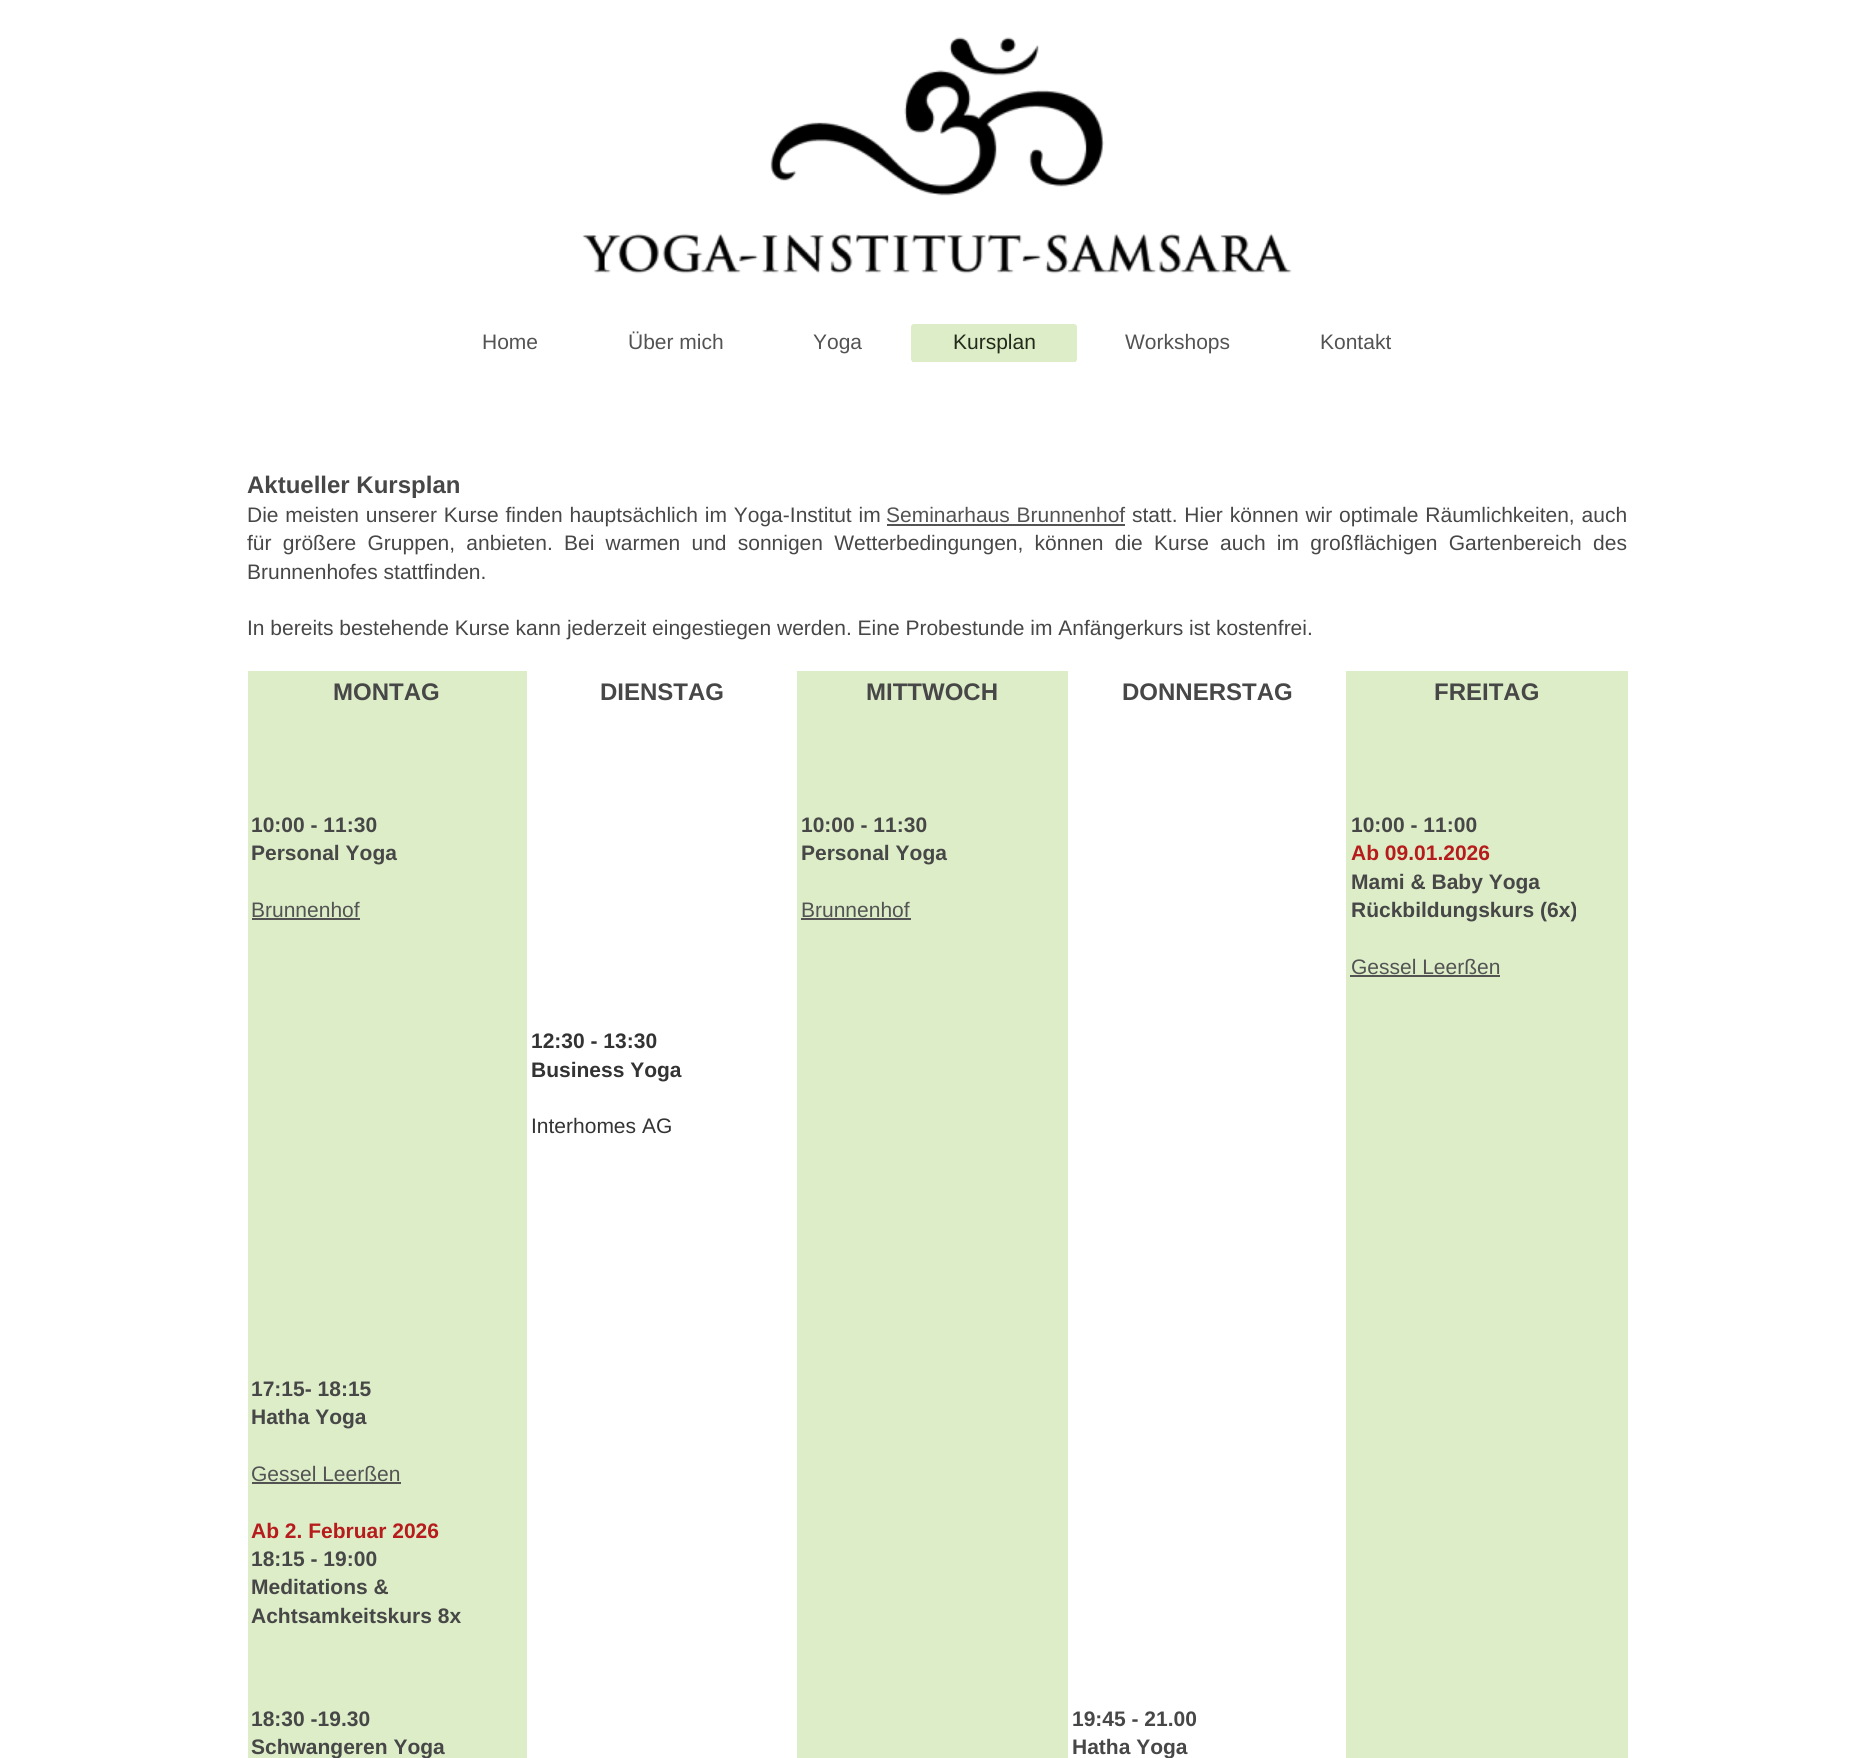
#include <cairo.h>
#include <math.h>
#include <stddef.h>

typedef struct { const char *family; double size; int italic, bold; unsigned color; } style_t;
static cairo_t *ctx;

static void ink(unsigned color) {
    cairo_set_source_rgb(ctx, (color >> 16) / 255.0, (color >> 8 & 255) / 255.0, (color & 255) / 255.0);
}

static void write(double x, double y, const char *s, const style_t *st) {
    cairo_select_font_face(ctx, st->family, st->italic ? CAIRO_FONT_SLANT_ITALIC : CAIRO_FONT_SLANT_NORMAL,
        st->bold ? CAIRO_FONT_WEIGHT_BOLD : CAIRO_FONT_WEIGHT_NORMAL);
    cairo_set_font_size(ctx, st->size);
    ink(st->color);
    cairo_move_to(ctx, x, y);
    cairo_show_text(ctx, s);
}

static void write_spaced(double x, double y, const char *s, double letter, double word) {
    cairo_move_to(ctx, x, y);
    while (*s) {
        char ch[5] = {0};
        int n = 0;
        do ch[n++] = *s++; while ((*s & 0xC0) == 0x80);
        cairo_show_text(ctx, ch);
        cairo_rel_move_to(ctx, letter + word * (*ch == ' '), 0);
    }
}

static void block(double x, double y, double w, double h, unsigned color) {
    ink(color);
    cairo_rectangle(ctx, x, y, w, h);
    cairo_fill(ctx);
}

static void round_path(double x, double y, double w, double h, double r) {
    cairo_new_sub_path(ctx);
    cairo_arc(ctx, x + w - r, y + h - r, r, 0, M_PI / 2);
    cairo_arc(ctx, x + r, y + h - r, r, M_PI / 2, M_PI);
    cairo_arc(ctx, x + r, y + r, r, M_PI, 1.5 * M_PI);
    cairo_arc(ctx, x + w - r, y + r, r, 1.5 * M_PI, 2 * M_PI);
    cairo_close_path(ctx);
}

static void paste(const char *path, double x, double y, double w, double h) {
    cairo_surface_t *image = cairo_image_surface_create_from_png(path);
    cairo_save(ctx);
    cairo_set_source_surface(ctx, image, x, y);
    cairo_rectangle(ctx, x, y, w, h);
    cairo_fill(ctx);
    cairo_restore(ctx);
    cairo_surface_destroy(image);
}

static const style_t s1 = {"Liberation Sans", 21, 0, 0, 0x535353};
static const style_t s2 = {"Liberation Sans", 21, 0, 0, 0x242b1a};
static const style_t s3 = {"Liberation Sans", 24, 0, 1, 0x474747};
static const style_t s4 = {"Liberation Sans", 21, 0, 0, 0x474747};
static const style_t s5 = {"Liberation Sans", 21, 0, 1, 0x474747};
static const style_t s6 = {"Liberation Sans", 21, 0, 1, 0xb71c1c};
static const style_t s7 = {"Liberation Sans", 21, 0, 1, 0x333333};
static const style_t s8 = {"Liberation Sans", 21, 0, 0, 0x333333};

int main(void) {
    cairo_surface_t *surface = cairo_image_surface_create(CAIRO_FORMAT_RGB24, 1873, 1758);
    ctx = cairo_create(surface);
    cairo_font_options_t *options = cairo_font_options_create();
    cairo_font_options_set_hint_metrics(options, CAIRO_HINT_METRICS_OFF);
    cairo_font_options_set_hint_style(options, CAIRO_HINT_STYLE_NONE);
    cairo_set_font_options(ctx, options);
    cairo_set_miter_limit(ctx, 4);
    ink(0xffffff);
    cairo_paint(ctx);
    paste("pic1.png", 582, 37, 710, 237);
    write(482, 349, "Home", &s1);
    write(628, 349, "Über mich", &s1);
    write(813, 349, "Yoga", &s1);
    ink(0xdcedc8);
    round_path(911, 324, 166, 38, 3);
    cairo_fill(ctx);
    block(912, 361, 164, 1, 0xdcedc8);
    write(953, 349, "Kursplan", &s2);
    write(1125, 349, "Workshops", &s1);
    write(1320, 349, "Kontakt", &s1);
    write(247, 493, "Aktueller Kursplan", &s3);
    cairo_select_font_face(ctx, "Liberation Sans", CAIRO_FONT_SLANT_NORMAL, CAIRO_FONT_WEIGHT_NORMAL);
    cairo_set_font_size(ctx, 21);
    write_spaced(247, 522, "Die meisten unserer Kurse finden hauptsächlich im Yoga-Institut im", 0, 1);
    ink(0x535353);
    write_spaced(886, 522, "Seminarhaus Brunnenhof", 0, 1);
    block(887, 524, 238, 2, 0x535353);
    ink(0x474747);
    write_spaced(1132, 522, "statt. Hier können wir optimale Räumlichkeiten, auch", 0, 1);
    write_spaced(247, 550, "für größere Gruppen, anbieten. Bei warmen und sonnigen Wetterbedingungen, können die Kurse auch im großflächigen Gartenbereich des", 0, 5.4);
    write(247, 579, "Brunnenhofes stattfinden.", &s4);
    write(247, 635, "In bereits bestehende Kurse kann jederzeit eingestiegen werden. Eine Probestunde im Anfängerkurs ist kostenfrei.", &s4);
    block(248, 671, 279, 1087, 0xdcedc8);
    write(333, 700, "MONTAG", &s3);
    write(600, 700, "DIENSTAG", &s3);
    block(797, 671, 271, 1087, 0xdcedc8);
    write(866, 700, "MITTWOCH", &s3);
    write(1122, 700, "DONNERSTAG", &s3);
    block(1346, 671, 282, 1087, 0xdcedc8);
    write(1434, 700, "FREITAG", &s3);
    write(251, 832, "10:00 - 11:30", &s5);
    write(251, 860, "Personal Yoga", &s5);
    write(251, 917, "Brunnenhof", &s1);
    block(252, 918, 108, 2, 0x535353);
    write(801, 832, "10:00 - 11:30", &s5);
    write(801, 860, "Personal Yoga", &s5);
    write(801, 917, "Brunnenhof", &s1);
    block(801, 918, 110, 2, 0x535353);
    write(1351, 832, "10:00 - 11:00", &s5);
    write(1351, 860, "Ab 09.01.2026", &s6);
    write(1351, 889, "Mami & Baby Yoga", &s5);
    write(1351, 917, "Rückbildungskurs (6x)", &s5);
    write(1351, 974, "Gessel Leerßen", &s1);
    block(1350, 975, 150, 2, 0x535353);
    write(531, 1048, "12:30 - 13:30", &s7);
    write(531, 1077, "Business Yoga", &s7);
    write(531, 1133, "Interhomes AG", &s8);
    write(251, 1396, "17:15- 18:15", &s5);
    write(251, 1424, "Hatha Yoga", &s5);
    write(251, 1481, "Gessel Leerßen", &s1);
    block(252, 1482, 149, 2, 0x535353);
    write(251, 1538, "Ab 2. Februar 2026", &s6);
    write(251, 1566, "18:15 - 19:00", &s5);
    write(251, 1594, "Meditations &", &s5);
    write(251, 1623, "Achtsamkeitskurs 8x", &s5);
    write(251, 1726, "18:30 -19.30", &s5);
    write(251, 1754, "Schwangeren Yoga", &s5);
    write(1072, 1726, "19:45 - 21.00", &s5);
    write(1072, 1754, "Hatha Yoga", &s5);
    cairo_surface_write_to_png(surface, "screenshot.png");
    cairo_font_options_destroy(options);
    cairo_destroy(ctx);
    cairo_surface_destroy(surface);
    return 0;
}
